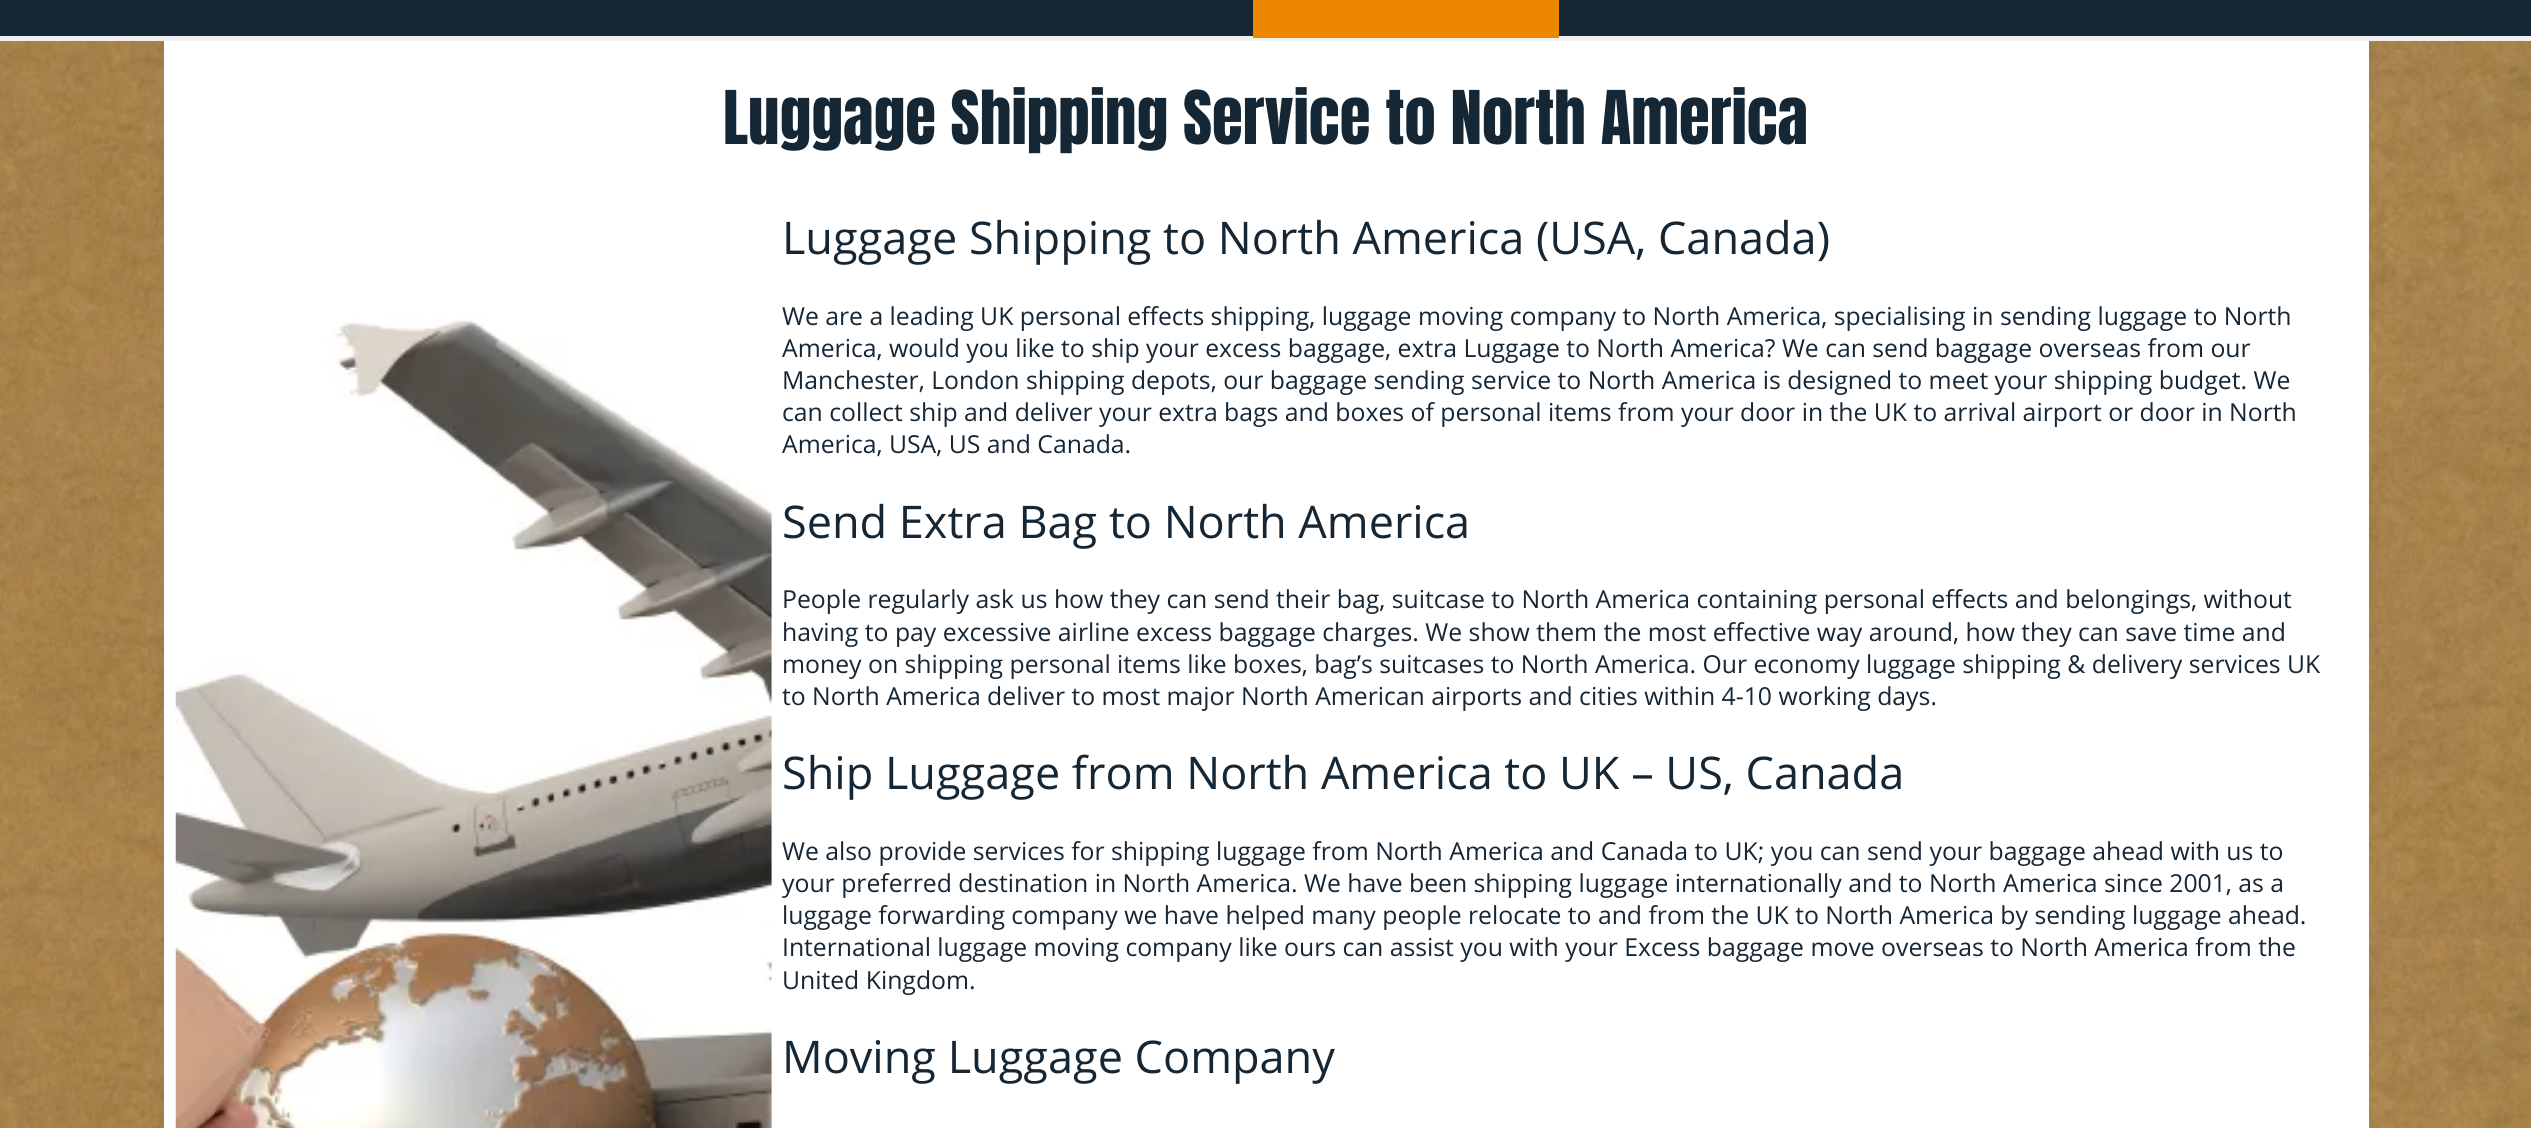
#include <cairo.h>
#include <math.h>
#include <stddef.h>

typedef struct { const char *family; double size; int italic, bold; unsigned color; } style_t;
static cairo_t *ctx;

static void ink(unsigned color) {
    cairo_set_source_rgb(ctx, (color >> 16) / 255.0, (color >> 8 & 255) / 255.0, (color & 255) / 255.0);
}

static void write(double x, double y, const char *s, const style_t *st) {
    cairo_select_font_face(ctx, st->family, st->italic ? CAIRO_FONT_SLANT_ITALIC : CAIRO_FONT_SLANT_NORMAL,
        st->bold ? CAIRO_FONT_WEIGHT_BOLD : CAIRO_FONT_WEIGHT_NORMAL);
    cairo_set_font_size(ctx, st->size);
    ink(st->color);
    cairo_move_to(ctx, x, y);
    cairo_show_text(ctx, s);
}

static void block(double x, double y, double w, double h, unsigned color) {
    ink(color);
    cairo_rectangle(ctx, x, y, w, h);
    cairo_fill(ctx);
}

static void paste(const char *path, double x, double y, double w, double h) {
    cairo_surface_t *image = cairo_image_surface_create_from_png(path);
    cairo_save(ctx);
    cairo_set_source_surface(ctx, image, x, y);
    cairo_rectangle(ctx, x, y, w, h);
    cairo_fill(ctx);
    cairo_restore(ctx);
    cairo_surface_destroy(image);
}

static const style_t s1 = {"Anton", 63, 0, 0, 0x152635};
static const style_t s2 = {"Open Sans", 45, 0, 0, 0x152635};
static const style_t s3 = {"Open Sans", 24.75, 0, 0, 0x152635};

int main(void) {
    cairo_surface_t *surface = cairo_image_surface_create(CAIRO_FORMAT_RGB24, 2531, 1128);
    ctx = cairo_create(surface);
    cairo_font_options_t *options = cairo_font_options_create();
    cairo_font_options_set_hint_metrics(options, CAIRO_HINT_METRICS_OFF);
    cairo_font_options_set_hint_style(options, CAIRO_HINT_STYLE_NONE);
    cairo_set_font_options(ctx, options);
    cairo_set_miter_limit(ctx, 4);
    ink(0xffffff);
    cairo_paint(ctx);
    paste("pic1.png", 0, 41, 2531, 1087);
    block(0, 0, 2531, 36, 0x152635);
    block(0, 36, 2531, 5, 0xf0f0f0);
    block(1253, 0, 306, 38, 0xed8600);
    block(164, 41, 2205, 1087, 0xffffff);
    write(723, 144, "Luggage Shipping Service to North America", &s1);
    paste("pic2.png", 175, 318, 597, 810);
    write(782, 254, "Luggage Shipping to North America (USA, Canada)", &s2);
    write(782, 325, "We are a leading UK personal effects shipping, luggage moving company to North America, specialising in sending luggage to North", &s3);
    write(782, 357, "America, would you like to ship your excess baggage, extra Luggage to North America? We can send baggage overseas from our", &s3);
    write(782, 389, "Manchester, London shipping depots, our baggage sending service to North America is designed to meet your shipping budget. We", &s3);
    write(782, 421, "can collect ship and deliver your extra bags and boxes of personal items from your door in the UK to arrival airport or door in North", &s3);
    write(782, 453, "America, USA, US and Canada.", &s3);
    write(782, 538, "Send Extra Bag to North America", &s2);
    write(782, 608, "People regularly ask us how they can send their bag, suitcase to North America containing personal effects and belongings, without", &s3);
    write(782, 641, "having to pay excessive airline excess baggage charges. We show them the most effective way around, how they can save time and", &s3);
    write(782, 673, "money on shipping personal items like boxes, bag’s suitcases to North America. Our economy luggage shipping & delivery services UK", &s3);
    write(782, 705, "to North America deliver to most major North American airports and cities within 4-10 working days.", &s3);
    write(782, 789, "Ship Luggage from North America to UK – US, Canada", &s2);
    write(782, 860, "We also provide services for shipping luggage from North America and Canada to UK; you can send your baggage ahead with us to", &s3);
    write(782, 892, "your preferred destination in North America. We have been shipping luggage internationally and to North America since 2001, as a", &s3);
    write(782, 924, "luggage forwarding company we have helped many people relocate to and from the UK to North America by sending luggage ahead.", &s3);
    write(782, 956, "International luggage moving company like ours can assist you with your Excess baggage move overseas to North America from the", &s3);
    write(782, 989, "United Kingdom.", &s3);
    write(782, 1073, "Moving Luggage Company", &s2);
    cairo_surface_write_to_png(surface, "screenshot.png");
    cairo_font_options_destroy(options);
    cairo_destroy(ctx);
    cairo_surface_destroy(surface);
    return 0;
}
